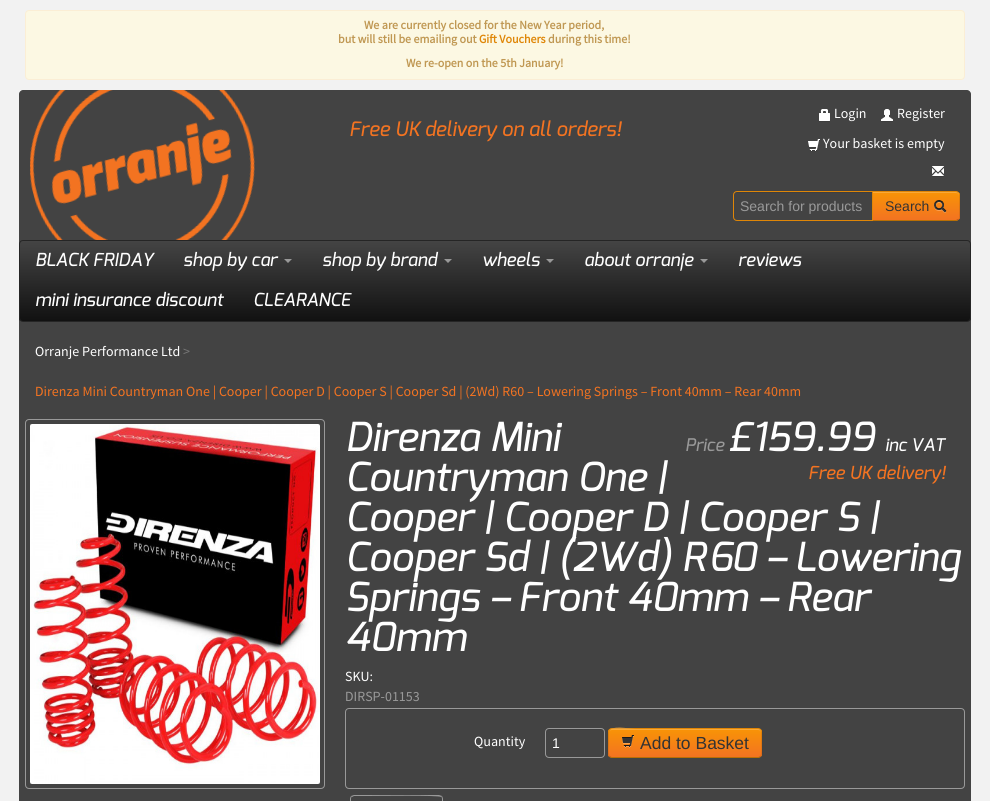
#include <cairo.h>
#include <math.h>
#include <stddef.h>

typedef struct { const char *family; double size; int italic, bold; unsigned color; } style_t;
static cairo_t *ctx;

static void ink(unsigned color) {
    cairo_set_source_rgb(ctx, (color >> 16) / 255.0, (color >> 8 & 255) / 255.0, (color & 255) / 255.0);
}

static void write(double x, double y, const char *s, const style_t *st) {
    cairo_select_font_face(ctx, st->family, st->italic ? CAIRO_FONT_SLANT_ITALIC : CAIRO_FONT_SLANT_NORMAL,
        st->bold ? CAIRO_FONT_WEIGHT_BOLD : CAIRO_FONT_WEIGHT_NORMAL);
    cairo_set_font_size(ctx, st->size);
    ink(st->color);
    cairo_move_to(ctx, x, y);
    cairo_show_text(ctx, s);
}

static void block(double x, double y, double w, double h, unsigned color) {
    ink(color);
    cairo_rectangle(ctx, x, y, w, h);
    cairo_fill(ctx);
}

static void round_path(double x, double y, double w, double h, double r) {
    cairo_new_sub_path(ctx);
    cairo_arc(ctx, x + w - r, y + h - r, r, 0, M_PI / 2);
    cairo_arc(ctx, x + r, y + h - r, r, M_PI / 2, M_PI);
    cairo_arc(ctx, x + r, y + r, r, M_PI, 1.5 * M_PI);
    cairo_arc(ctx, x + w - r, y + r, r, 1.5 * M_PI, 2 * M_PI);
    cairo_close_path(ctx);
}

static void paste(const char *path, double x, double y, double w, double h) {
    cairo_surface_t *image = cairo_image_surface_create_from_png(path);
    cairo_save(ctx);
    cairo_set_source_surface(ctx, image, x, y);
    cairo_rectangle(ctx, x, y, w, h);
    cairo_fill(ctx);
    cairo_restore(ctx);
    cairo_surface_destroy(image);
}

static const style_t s1 = {"Source Sans Pro", 12, 0, 1, 0xc09853};
static const style_t s2 = {"Source Sans Pro", 12, 0, 1, 0xdf8607};
static const style_t s3 = {"Exo Medium", 20, 1, 0, 0xf37321};
static const style_t s4 = {"Source Sans Pro", 14, 0, 0, 0xffffff};
static const style_t s5 = {"Liberation Sans", 14, 0, 0, 0x999999};
static const style_t s6 = {"Liberation Sans", 14, 0, 0, 0x333333};
static const style_t s7 = {"Exo Medium", 18, 1, 0, 0xffffff};
static const style_t s8 = {"Source Sans Pro", 14, 0, 0, 0x777777};
static const style_t s9 = {"Source Sans Pro", 14, 0, 0, 0xf37321};
static const style_t s10 = {"Exo Medium", 40, 1, 0, 0xffffff};
static const style_t s11 = {"Exo Medium", 17.5, 1, 0, 0x999999};
static const style_t s12 = {"Exo Medium", 17.5, 1, 0, 0xffffff};
static const style_t s13 = {"Exo Medium", 18, 1, 0, 0xf37321};
static const style_t s14 = {"Source Sans Pro", 14, 0, 0, 0x999999};
static const style_t s15 = {"Liberation Sans", 14, 0, 0, 0xffffff};
static const style_t s16 = {"Liberation Sans", 17.5, 0, 0, 0x333333};

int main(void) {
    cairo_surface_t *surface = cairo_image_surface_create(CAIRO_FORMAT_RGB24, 990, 801);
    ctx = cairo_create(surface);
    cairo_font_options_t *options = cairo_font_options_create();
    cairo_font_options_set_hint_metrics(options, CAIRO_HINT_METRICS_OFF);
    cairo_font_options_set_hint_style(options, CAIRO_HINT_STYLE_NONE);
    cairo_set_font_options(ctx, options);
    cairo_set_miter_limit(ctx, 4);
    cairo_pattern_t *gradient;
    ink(0xf2f2f2);
    cairo_paint(ctx);
    ink(0xfcf8e3);
    round_path(25.5, 10.5, 939, 69, 3.5);
    cairo_fill_preserve(ctx);
    ink(0xfbeed5);
    cairo_set_line_width(ctx, 1);
    cairo_stroke(ctx);
    write(364, 29, "We are currently closed for the New Year period,", &s1);
    write(338, 43, "but will still be emailing out", &s1);
    write(479, 43, "Gift Vouchers", &s2);
    write(548, 43, "during this time!", &s1);
    write(406, 67, "We re-open on the 5th January!", &s1);
    ink(0x434343);
    cairo_new_path(ctx);
    cairo_move_to(ctx, 23, 90);
    cairo_line_to(ctx, 967, 90);
    cairo_curve_to(ctx, 969, 90, 971, 92, 971, 94);
    cairo_line_to(ctx, 971, 240);
    cairo_line_to(ctx, 19, 240);
    cairo_line_to(ctx, 19, 94);
    cairo_curve_to(ctx, 19, 92, 21, 90, 23, 90);
    cairo_close_path(ctx);
    cairo_fill(ctx);
    paste("pic1.png", 30, 90, 225, 150);
    write(349, 136, "Free UK delivery on all orders!", &s3);
    paste("pic2.png", 819, 109, 11, 13);
    write(834, 118, "Login", &s4);
    paste("pic3.png", 881, 109, 12, 13);
    write(897, 118, "Register", &s4);
    paste("pic4.png", 808, 139, 12, 13);
    write(823, 148, "Your basket is empty", &s4);
    paste("pic5.png", 932, 166, 12, 11);
    ink(0xf89406);
    cairo_new_path(ctx);
    cairo_move_to(ctx, 872, 191);
    cairo_line_to(ctx, 956, 191);
    cairo_curve_to(ctx, 958, 191, 960, 193, 960, 195);
    cairo_line_to(ctx, 960, 217);
    cairo_curve_to(ctx, 960, 219, 958, 221, 956, 221);
    cairo_line_to(ctx, 872, 221);
    cairo_close_path(ctx);
    cairo_fill(ctx);
    cairo_save(ctx);
    cairo_new_path(ctx);
    cairo_move_to(ctx, 872, 191);
    cairo_line_to(ctx, 956, 191);
    cairo_curve_to(ctx, 958, 191, 960, 193, 960, 195);
    cairo_line_to(ctx, 960, 217);
    cairo_curve_to(ctx, 960, 219, 958, 221, 956, 221);
    cairo_line_to(ctx, 872, 221);
    cairo_close_path(ctx);
    cairo_clip(ctx);
    gradient = cairo_pattern_create_linear(916, 192, 916, 220);
    cairo_pattern_add_color_stop_rgba(gradient, 0, 0.973, 0.58, 0.024, 1);
    cairo_pattern_add_color_stop_rgba(gradient, 1, 0.953, 0.451, 0.129, 1);
    cairo_set_source(ctx, gradient);
    cairo_pattern_destroy(gradient);
    cairo_rectangle(ctx, 873, 192, 87, 28);
    cairo_fill(ctx);
    cairo_restore(ctx);
    ink(0xf9a938);
    cairo_new_path(ctx);
    cairo_move_to(ctx, 873, 193);
    cairo_line_to(ctx, 956, 193);
    cairo_curve_to(ctx, 958, 193, 959, 194, 959, 196);
    cairo_line_to(ctx, 959, 195);
    cairo_curve_to(ctx, 959, 193, 958, 192, 956, 192);
    cairo_line_to(ctx, 873, 192);
    cairo_close_path(ctx);
    cairo_fill(ctx);
    cairo_set_source_rgba(ctx, 0, 0, 0, 0.1);
    cairo_new_path(ctx);
    cairo_move_to(ctx, 872, 191);
    cairo_line_to(ctx, 873, 192);
    cairo_line_to(ctx, 956, 192);
    cairo_line_to(ctx, 958, 193);
    cairo_line_to(ctx, 959, 192);
    cairo_line_to(ctx, 956, 191);
    cairo_close_path(ctx);
    cairo_fill(ctx);
    cairo_new_path(ctx);
    cairo_move_to(ctx, 960, 217);
    cairo_line_to(ctx, 960, 195);
    cairo_curve_to(ctx, 960, 194, 959.5, 193, 959, 192);
    cairo_line_to(ctx, 958, 193);
    cairo_curve_to(ctx, 959, 193, 959, 194, 959, 195);
    cairo_line_to(ctx, 959, 217);
    cairo_curve_to(ctx, 959, 218, 959, 219, 958, 219);
    cairo_line_to(ctx, 959, 220);
    cairo_curve_to(ctx, 959.5, 219, 960, 218, 960, 217);
    cairo_close_path(ctx);
    cairo_fill(ctx);
    cairo_set_source_rgba(ctx, 0, 0, 0, 0.25);
    cairo_new_path(ctx);
    cairo_move_to(ctx, 956, 221);
    cairo_line_to(ctx, 959, 220);
    cairo_line_to(ctx, 958, 219);
    cairo_line_to(ctx, 956, 220);
    cairo_line_to(ctx, 873, 220);
    cairo_line_to(ctx, 872, 221);
    cairo_close_path(ctx);
    cairo_fill(ctx);
    ink(0x434343);
    cairo_new_path(ctx);
    cairo_move_to(ctx, 737, 191);
    cairo_line_to(ctx, 873, 191);
    cairo_line_to(ctx, 873, 221);
    cairo_line_to(ctx, 737, 221);
    cairo_curve_to(ctx, 735, 221, 733, 219, 733, 217);
    cairo_line_to(ctx, 733, 195);
    cairo_curve_to(ctx, 733, 193, 735, 191, 737, 191);
    cairo_close_path(ctx);
    cairo_fill(ctx);
    ink(0x3e3e3e);
    cairo_new_path(ctx);
    cairo_move_to(ctx, 737, 193);
    cairo_line_to(ctx, 872, 193);
    cairo_line_to(ctx, 872, 192);
    cairo_line_to(ctx, 737, 192);
    cairo_curve_to(ctx, 735, 192, 734, 194, 734, 196);
    cairo_curve_to(ctx, 734, 194, 735, 193, 737, 193);
    cairo_close_path(ctx);
    cairo_fill(ctx);
    cairo_new_path(ctx);
    cairo_move_to(ctx, 737, 191.5);
    cairo_line_to(ctx, 872.5, 191.5);
    cairo_line_to(ctx, 872.5, 220.5);
    cairo_line_to(ctx, 737, 220.5);
    cairo_curve_to(ctx, 735, 220.5, 733.5, 219, 733.5, 217);
    cairo_line_to(ctx, 733.5, 195);
    cairo_curve_to(ctx, 733.5, 193, 735, 191.5, 737, 191.5);
    cairo_close_path(ctx);
    ink(0xdf8607);
    cairo_stroke(ctx);
    write(740, 211, "Search for products", &s5);
    write(885, 211, "Search", &s6);
    paste("pic6.png", 934, 200, 13, 13);
    block(19, 240, 952, 561, 0x434343);
    cairo_save(ctx);
    round_path(19, 240, 952, 82, 4);
    cairo_clip(ctx);
    gradient = cairo_pattern_create_linear(495, 241, 495, 321);
    cairo_pattern_add_color_stop_rgba(gradient, 0, 0.267, 0.267, 0.267, 1);
    cairo_pattern_add_color_stop_rgba(gradient, 1, 0.067, 0.067, 0.067, 1);
    cairo_set_source(ctx, gradient);
    cairo_pattern_destroy(gradient);
    cairo_rectangle(ctx, 19, 241, 952, 80);
    cairo_fill(ctx);
    cairo_restore(ctx);
    round_path(19.5, 240.5, 951, 81, 3.5);
    ink(0x252525);
    cairo_stroke(ctx);
    write(35, 266, "BLACK FRIDAY", &s7);
    write(183, 266, "shop by car", &s7);
    ink(0x999999);
    cairo_new_path(ctx);
    cairo_move_to(ctx, 284, 259);
    cairo_line_to(ctx, 292, 259);
    cairo_line_to(ctx, 288, 263);
    cairo_close_path(ctx);
    cairo_fill(ctx);
    write(322, 266, "shop by brand", &s7);
    ink(0x999999);
    cairo_new_path(ctx);
    cairo_move_to(ctx, 444, 259);
    cairo_line_to(ctx, 452, 259);
    cairo_line_to(ctx, 448, 263);
    cairo_close_path(ctx);
    cairo_fill(ctx);
    write(482, 266, "wheels", &s7);
    ink(0x999999);
    cairo_new_path(ctx);
    cairo_move_to(ctx, 546, 259);
    cairo_line_to(ctx, 554, 259);
    cairo_line_to(ctx, 550, 263);
    cairo_close_path(ctx);
    cairo_fill(ctx);
    write(584, 266, "about orranje", &s7);
    ink(0x999999);
    cairo_new_path(ctx);
    cairo_move_to(ctx, 700, 259);
    cairo_line_to(ctx, 708, 259);
    cairo_line_to(ctx, 704, 263);
    cairo_close_path(ctx);
    cairo_fill(ctx);
    write(738, 266, "reviews", &s7);
    write(35, 306, "mini insurance discount", &s7);
    write(253, 306, "CLEARANCE", &s7);
    write(35, 356, "Orranje Performance Ltd", &s4);
    write(183, 356, ">", &s8);
    write(35, 396, "Direnza Mini Countryman One | Cooper | Cooper D | Cooper S | Cooper Sd | (2Wd) R60 – Lowering Springs – Front 40mm – Rear 40mm", &s9);
    round_path(25.5, 419.5, 299, 369, 3.5);
    ink(0x999999);
    cairo_stroke(ctx);
    paste("pic7.png", 30, 424, 290, 360);
    write(345, 451, "Direnza Mini", &s10);
    write(345, 491, "Countryman One |", &s10);
    write(345, 531, "Cooper | Cooper D | Cooper S |", &s10);
    write(345, 571, "Cooper Sd | (2Wd) R60 – Lowering", &s10);
    write(345, 611, "Springs – Front 40mm – Rear", &s10);
    write(345, 651, "40mm", &s10);
    write(685, 451, "Price", &s11);
    write(728, 451, "£159.99", &s10);
    write(885, 451, "inc VAT", &s12);
    write(808, 479, "Free UK delivery!", &s13);
    write(345, 681, "SKU:", &s4);
    write(345, 701, "DIRSP-01153", &s14);
    ink(0x404040);
    cairo_new_path(ctx);
    cairo_move_to(ctx, 349, 710);
    cairo_line_to(ctx, 961, 710);
    cairo_curve_to(ctx, 963, 710, 964, 711, 964, 713);
    cairo_line_to(ctx, 964, 712);
    cairo_curve_to(ctx, 964, 710, 963, 709, 961, 709);
    cairo_line_to(ctx, 349, 709);
    cairo_curve_to(ctx, 347, 709, 346, 710, 346, 712);
    cairo_line_to(ctx, 346, 713);
    cairo_curve_to(ctx, 346, 711, 347, 710, 349, 710);
    cairo_close_path(ctx);
    cairo_fill(ctx);
    round_path(345.5, 708.5, 619, 80, 3.5);
    ink(0x999999);
    cairo_stroke(ctx);
    write(474, 746, "Quantity", &s4);
    ink(0x3e3e3e);
    cairo_new_path(ctx);
    cairo_move_to(ctx, 549, 730);
    cairo_line_to(ctx, 601, 730);
    cairo_curve_to(ctx, 603, 730, 604, 731, 604, 733);
    cairo_curve_to(ctx, 604, 727, 597, 729, 592, 729);
    cairo_line_to(ctx, 558, 729);
    cairo_curve_to(ctx, 553, 729, 546, 727, 546, 733);
    cairo_curve_to(ctx, 546, 731, 547, 730, 549, 730);
    cairo_close_path(ctx);
    cairo_fill(ctx);
    round_path(545.5, 728.5, 59, 29, 3.5);
    ink(0x999999);
    cairo_stroke(ctx);
    write(552, 748, "1", &s15);
    ink(0xf89406);
    round_path(608, 728, 154, 30, 4);
    cairo_fill(ctx);
    cairo_save(ctx);
    round_path(608, 728, 154, 30, 4);
    cairo_clip(ctx);
    gradient = cairo_pattern_create_linear(685, 729, 685, 757);
    cairo_pattern_add_color_stop_rgba(gradient, 0, 0.973, 0.58, 0.024, 1);
    cairo_pattern_add_color_stop_rgba(gradient, 1, 0.953, 0.451, 0.129, 1);
    cairo_set_source(ctx, gradient);
    cairo_pattern_destroy(gradient);
    cairo_rectangle(ctx, 608, 729, 154, 28);
    cairo_fill(ctx);
    cairo_restore(ctx);
    ink(0xf9a938);
    cairo_new_path(ctx);
    cairo_move_to(ctx, 612, 730);
    cairo_line_to(ctx, 758, 730);
    cairo_curve_to(ctx, 760, 730, 761, 731, 761, 733);
    cairo_curve_to(ctx, 761, 731, 761, 730, 759, 729);
    cairo_line_to(ctx, 636, 729);
    cairo_curve_to(ctx, 629, 729, 609, 724, 609, 733);
    cairo_curve_to(ctx, 609, 731, 610, 730, 612, 730);
    cairo_close_path(ctx);
    cairo_fill(ctx);
    cairo_new_path(ctx);
    cairo_move_to(ctx, 760.5, 756.5);
    cairo_curve_to(ctx, 760, 757, 759, 757.5, 758, 757.5);
    cairo_line_to(ctx, 612, 757.5);
    cairo_curve_to(ctx, 611, 757.5, 610, 757, 609.5, 756.5);
    cairo_set_source_rgba(ctx, 0, 0, 0, 0.25);
    cairo_stroke(ctx);
    cairo_new_path(ctx);
    cairo_move_to(ctx, 609.5, 756.5);
    cairo_curve_to(ctx, 607.5, 754.5, 608.5, 746, 608.5, 743);
    cairo_line_to(ctx, 608.5, 735.5);
    cairo_curve_to(ctx, 608.5, 733, 608, 728.5, 612, 728.5);
    cairo_line_to(ctx, 758, 728.5);
    cairo_curve_to(ctx, 762, 728.5, 761.5, 733, 761.5, 735.5);
    cairo_line_to(ctx, 761.5, 743);
    cairo_curve_to(ctx, 761.5, 746, 762.5, 754.5, 760.5, 756.5);
    cairo_set_source_rgba(ctx, 0, 0, 0, 0.1);
    cairo_stroke(ctx);
    paste("pic8.png", 622, 735, 12, 13);
    write(640, 749, "Add to Basket", &s16);
    ink(0x999999);
    cairo_new_path(ctx);
    cairo_move_to(ctx, 354, 795);
    cairo_line_to(ctx, 351, 796);
    cairo_line_to(ctx, 352, 797);
    cairo_line_to(ctx, 354, 796);
    cairo_line_to(ctx, 368, 796);
    cairo_curve_to(ctx, 376, 796, 439, 795, 441, 797);
    cairo_line_to(ctx, 442, 796);
    cairo_line_to(ctx, 439, 795);
    cairo_close_path(ctx);
    cairo_fill(ctx);
    cairo_new_path(ctx);
    cairo_move_to(ctx, 443, 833);
    cairo_line_to(ctx, 443, 799);
    cairo_curve_to(ctx, 443, 798, 442.5, 797, 442, 796);
    cairo_line_to(ctx, 441, 797);
    cairo_curve_to(ctx, 442, 797, 442, 798, 442, 799);
    cairo_line_to(ctx, 442, 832);
    cairo_close_path(ctx);
    cairo_fill(ctx);
    cairo_new_path(ctx);
    cairo_move_to(ctx, 350, 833);
    cairo_line_to(ctx, 351, 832);
    cairo_line_to(ctx, 351, 799);
    cairo_curve_to(ctx, 351, 798, 351, 797, 352, 797);
    cairo_line_to(ctx, 351, 796);
    cairo_curve_to(ctx, 350.5, 797, 350, 798, 350, 799);
    cairo_close_path(ctx);
    cairo_fill(ctx);
    cairo_surface_write_to_png(surface, "screenshot.png");
    cairo_font_options_destroy(options);
    cairo_destroy(ctx);
    cairo_surface_destroy(surface);
    return 0;
}
